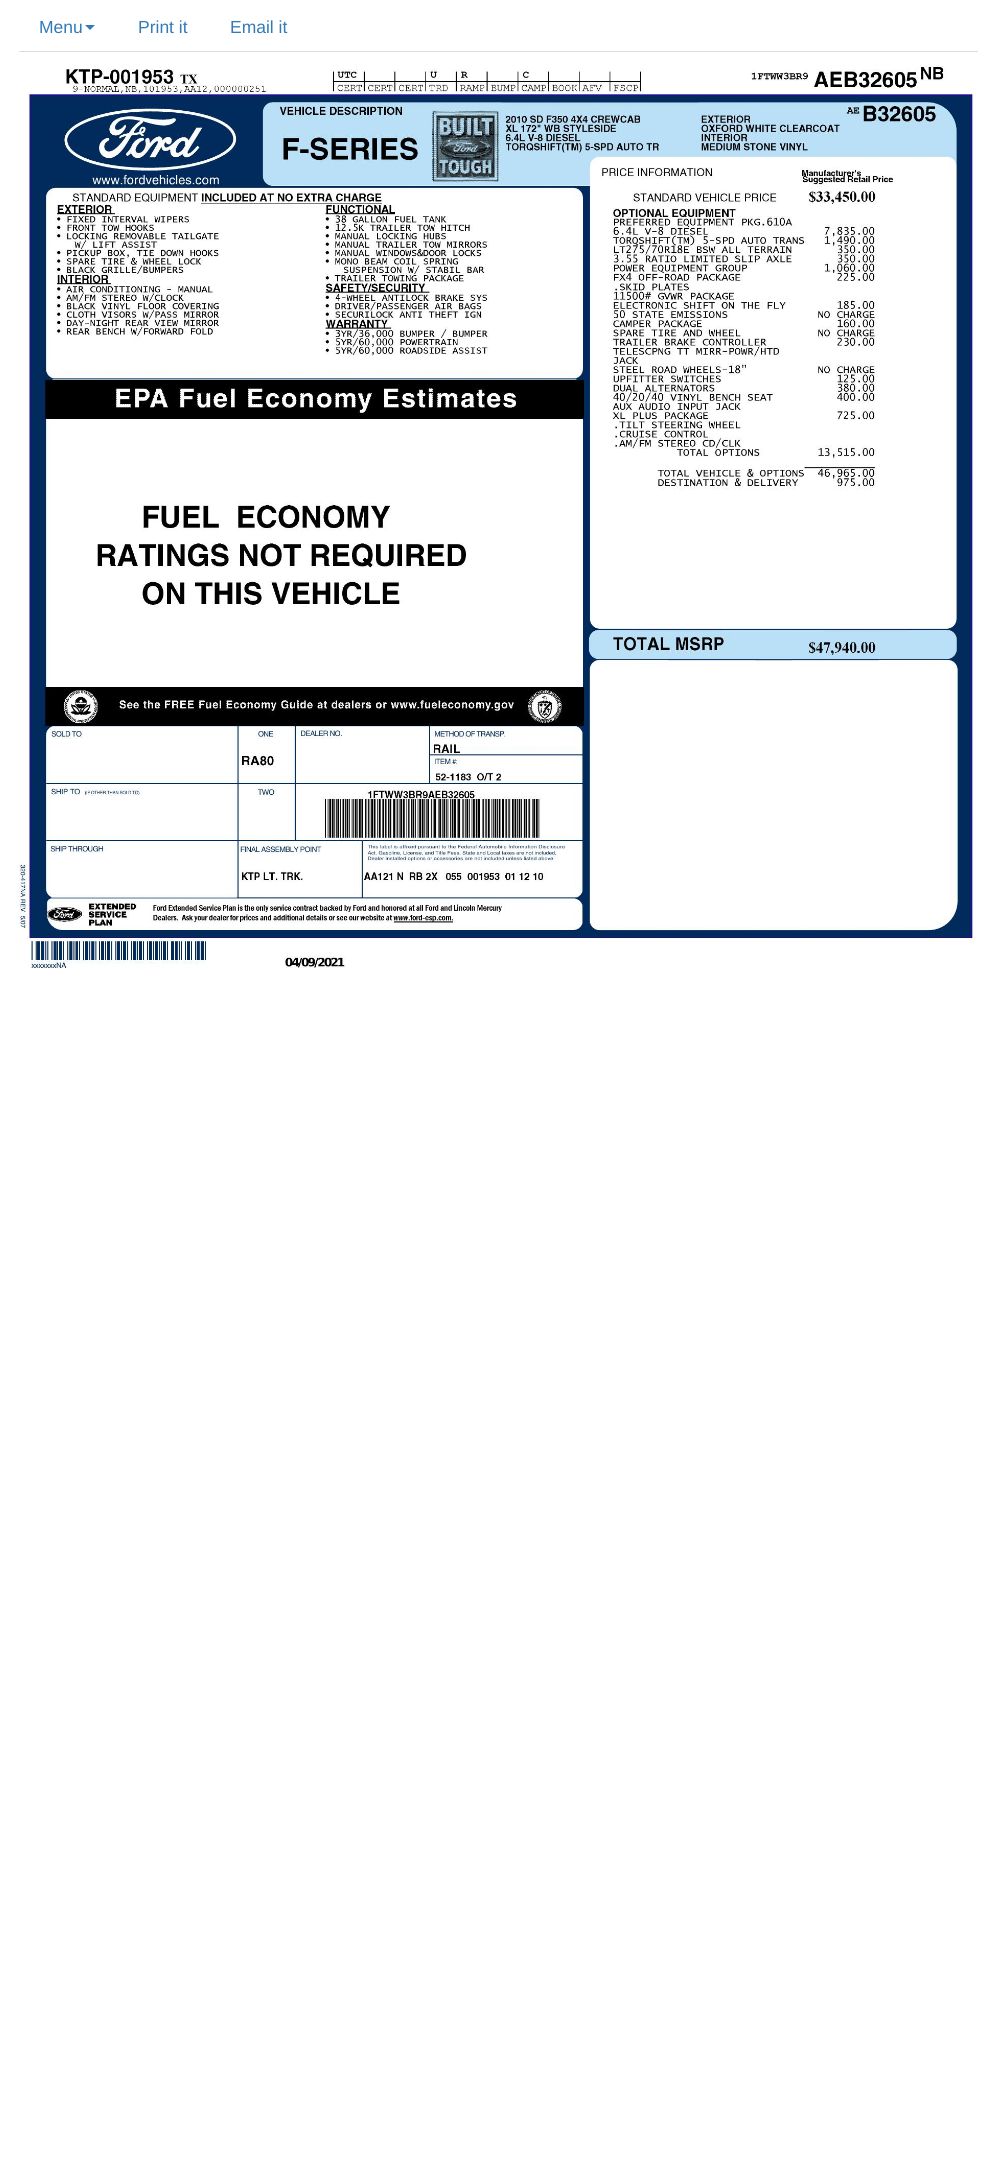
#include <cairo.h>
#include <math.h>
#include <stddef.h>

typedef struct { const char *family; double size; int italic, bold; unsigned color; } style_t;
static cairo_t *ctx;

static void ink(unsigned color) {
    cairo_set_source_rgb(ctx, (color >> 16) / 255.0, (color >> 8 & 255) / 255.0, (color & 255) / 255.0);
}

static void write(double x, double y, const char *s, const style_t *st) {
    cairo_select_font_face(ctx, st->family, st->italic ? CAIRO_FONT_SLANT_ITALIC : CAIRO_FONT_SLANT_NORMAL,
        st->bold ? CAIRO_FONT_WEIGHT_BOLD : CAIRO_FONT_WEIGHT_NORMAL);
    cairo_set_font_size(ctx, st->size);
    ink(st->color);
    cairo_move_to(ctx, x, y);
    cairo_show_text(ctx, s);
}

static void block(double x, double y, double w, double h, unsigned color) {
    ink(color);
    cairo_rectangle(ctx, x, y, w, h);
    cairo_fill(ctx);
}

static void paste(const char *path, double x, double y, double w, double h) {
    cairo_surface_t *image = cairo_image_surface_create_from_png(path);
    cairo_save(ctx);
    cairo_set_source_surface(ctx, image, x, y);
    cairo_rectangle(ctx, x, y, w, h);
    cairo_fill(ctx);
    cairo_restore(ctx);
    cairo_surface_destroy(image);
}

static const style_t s1 = {"Liberation Sans", 17.5, 0, 0, 0x337ab7};

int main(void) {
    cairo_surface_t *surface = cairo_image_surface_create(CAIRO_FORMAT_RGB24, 996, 2166);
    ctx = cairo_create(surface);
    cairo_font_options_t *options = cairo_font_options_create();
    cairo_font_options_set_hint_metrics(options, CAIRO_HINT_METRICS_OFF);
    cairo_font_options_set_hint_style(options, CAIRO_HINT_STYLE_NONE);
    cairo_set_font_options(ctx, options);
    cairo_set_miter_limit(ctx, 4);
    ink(0xffffff);
    cairo_paint(ctx);
    block(19, 51, 959, 1, 0xdddddd);
    write(39, 33, "Menu", &s1);
    cairo_new_path(ctx);
    cairo_move_to(ctx, 85, 25);
    cairo_line_to(ctx, 95, 25);
    cairo_line_to(ctx, 90, 30);
    cairo_close_path(ctx);
    cairo_fill(ctx);
    write(138, 33, "Print it", &s1);
    write(230, 33, "Email it", &s1);
    paste("pic1.png", 18, 65, 958, 903);
    cairo_surface_write_to_png(surface, "screenshot.png");
    cairo_font_options_destroy(options);
    cairo_destroy(ctx);
    cairo_surface_destroy(surface);
    return 0;
}
